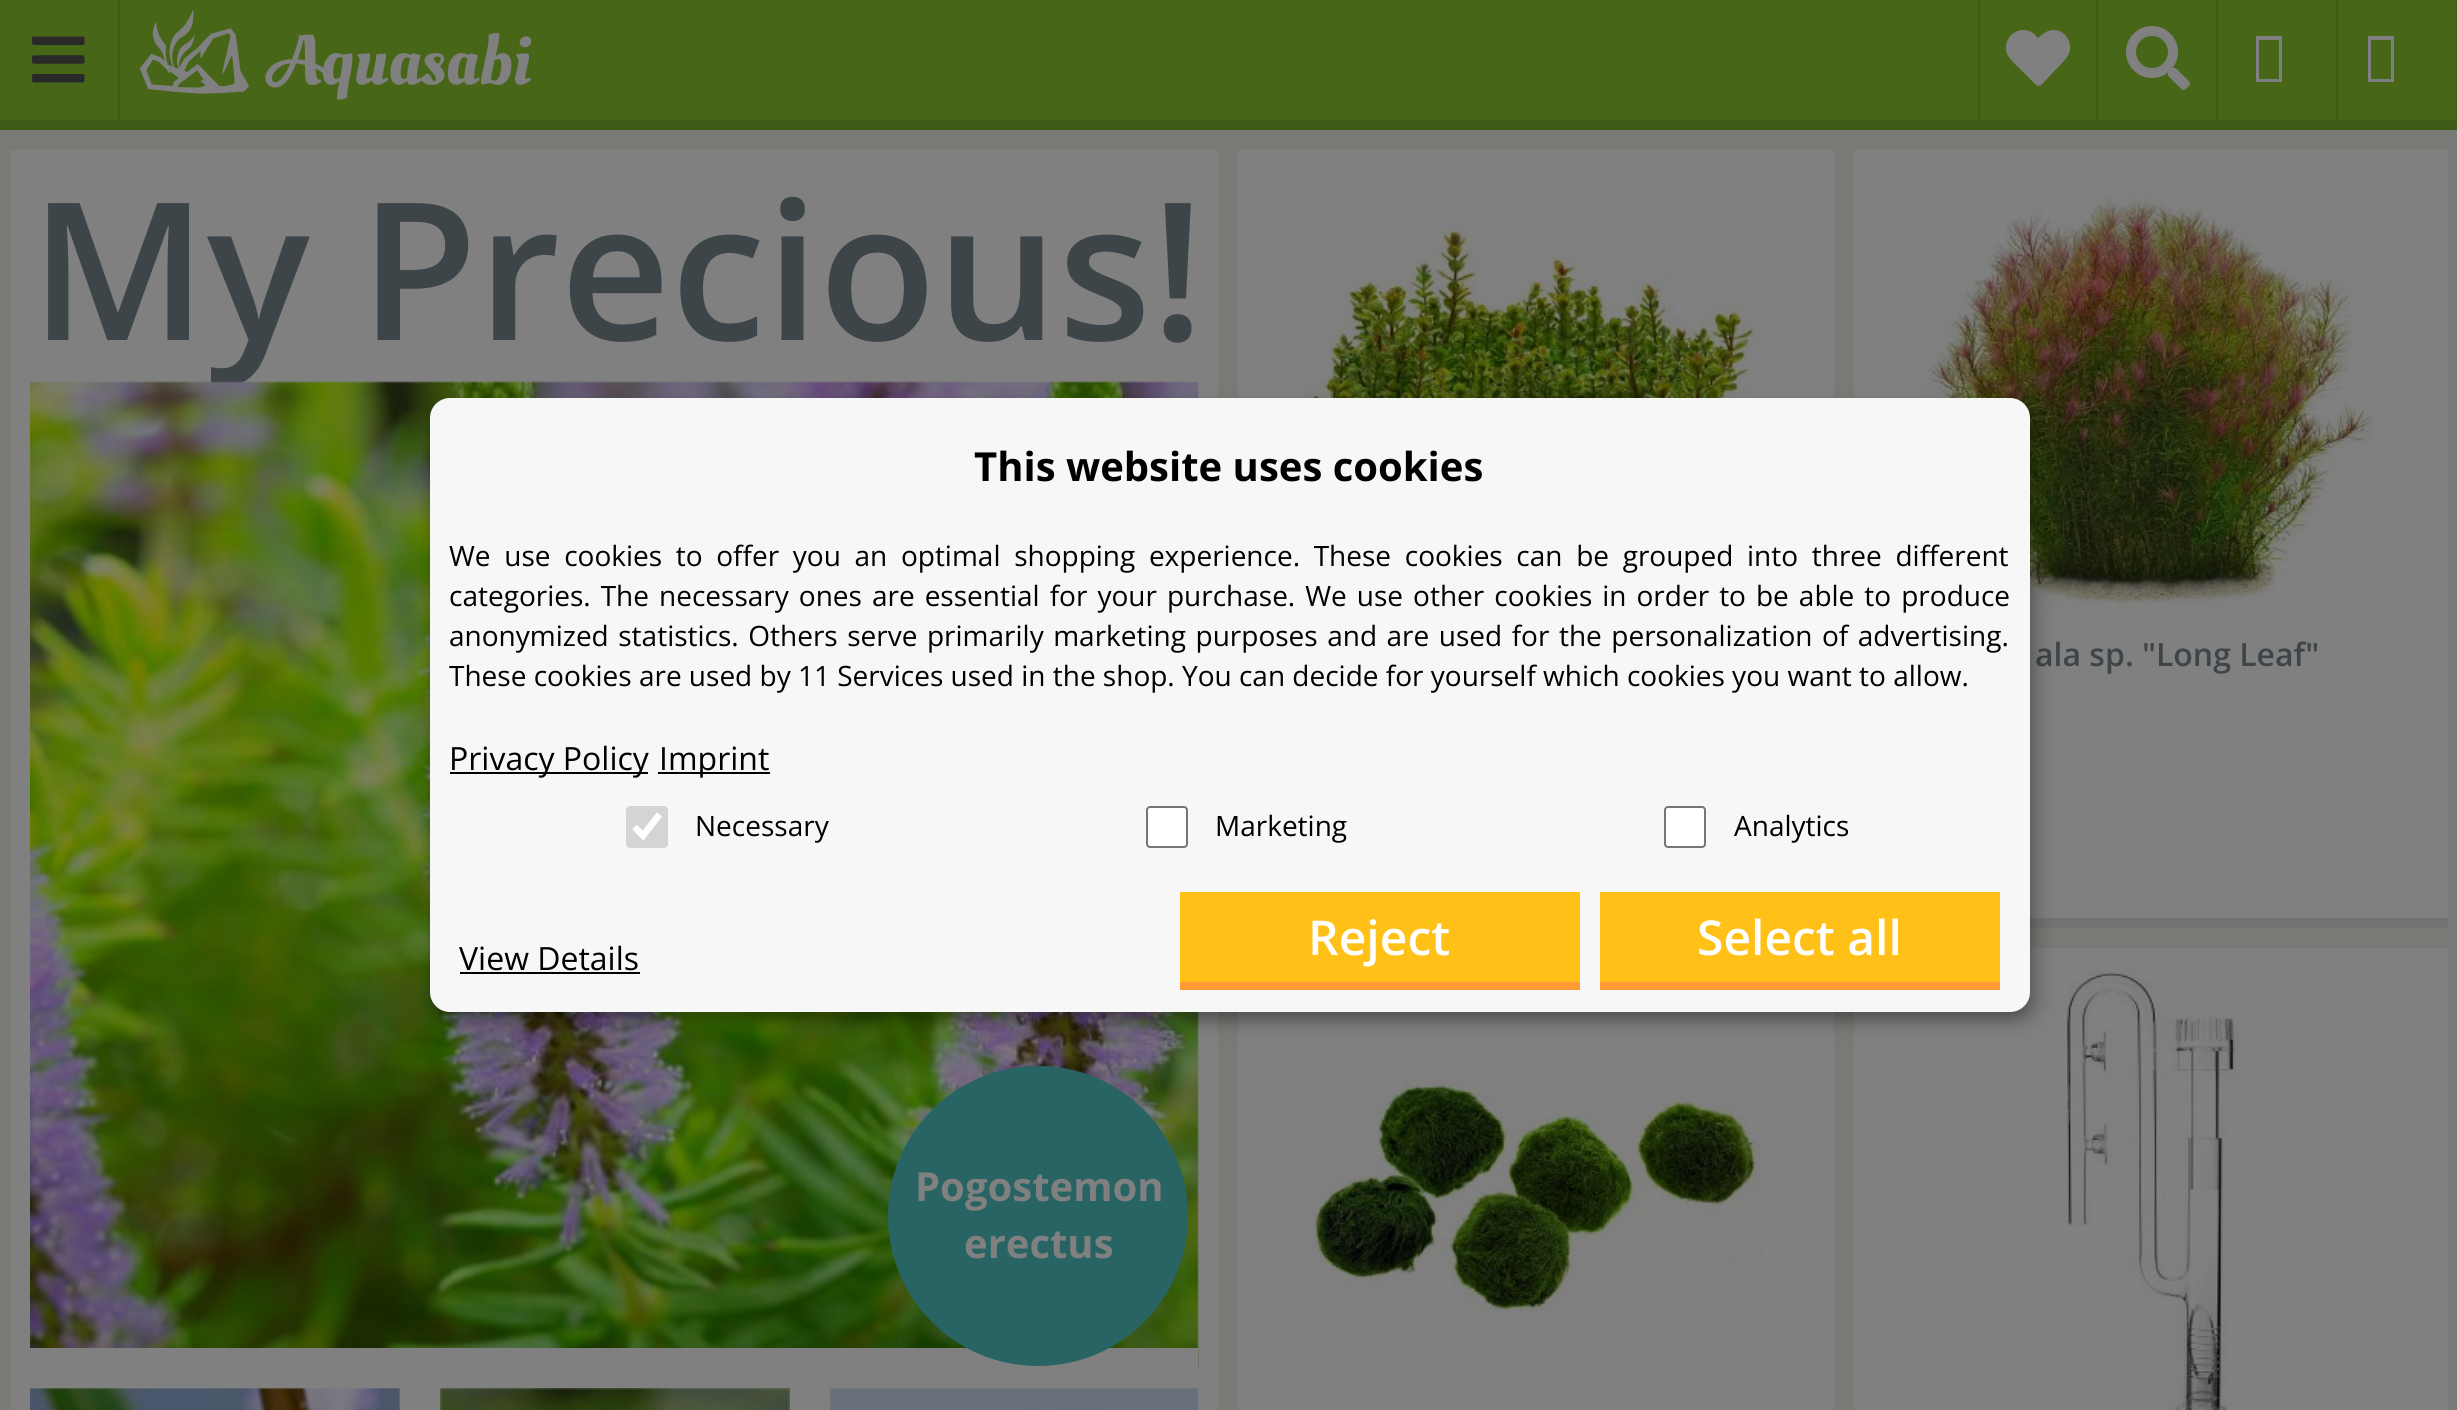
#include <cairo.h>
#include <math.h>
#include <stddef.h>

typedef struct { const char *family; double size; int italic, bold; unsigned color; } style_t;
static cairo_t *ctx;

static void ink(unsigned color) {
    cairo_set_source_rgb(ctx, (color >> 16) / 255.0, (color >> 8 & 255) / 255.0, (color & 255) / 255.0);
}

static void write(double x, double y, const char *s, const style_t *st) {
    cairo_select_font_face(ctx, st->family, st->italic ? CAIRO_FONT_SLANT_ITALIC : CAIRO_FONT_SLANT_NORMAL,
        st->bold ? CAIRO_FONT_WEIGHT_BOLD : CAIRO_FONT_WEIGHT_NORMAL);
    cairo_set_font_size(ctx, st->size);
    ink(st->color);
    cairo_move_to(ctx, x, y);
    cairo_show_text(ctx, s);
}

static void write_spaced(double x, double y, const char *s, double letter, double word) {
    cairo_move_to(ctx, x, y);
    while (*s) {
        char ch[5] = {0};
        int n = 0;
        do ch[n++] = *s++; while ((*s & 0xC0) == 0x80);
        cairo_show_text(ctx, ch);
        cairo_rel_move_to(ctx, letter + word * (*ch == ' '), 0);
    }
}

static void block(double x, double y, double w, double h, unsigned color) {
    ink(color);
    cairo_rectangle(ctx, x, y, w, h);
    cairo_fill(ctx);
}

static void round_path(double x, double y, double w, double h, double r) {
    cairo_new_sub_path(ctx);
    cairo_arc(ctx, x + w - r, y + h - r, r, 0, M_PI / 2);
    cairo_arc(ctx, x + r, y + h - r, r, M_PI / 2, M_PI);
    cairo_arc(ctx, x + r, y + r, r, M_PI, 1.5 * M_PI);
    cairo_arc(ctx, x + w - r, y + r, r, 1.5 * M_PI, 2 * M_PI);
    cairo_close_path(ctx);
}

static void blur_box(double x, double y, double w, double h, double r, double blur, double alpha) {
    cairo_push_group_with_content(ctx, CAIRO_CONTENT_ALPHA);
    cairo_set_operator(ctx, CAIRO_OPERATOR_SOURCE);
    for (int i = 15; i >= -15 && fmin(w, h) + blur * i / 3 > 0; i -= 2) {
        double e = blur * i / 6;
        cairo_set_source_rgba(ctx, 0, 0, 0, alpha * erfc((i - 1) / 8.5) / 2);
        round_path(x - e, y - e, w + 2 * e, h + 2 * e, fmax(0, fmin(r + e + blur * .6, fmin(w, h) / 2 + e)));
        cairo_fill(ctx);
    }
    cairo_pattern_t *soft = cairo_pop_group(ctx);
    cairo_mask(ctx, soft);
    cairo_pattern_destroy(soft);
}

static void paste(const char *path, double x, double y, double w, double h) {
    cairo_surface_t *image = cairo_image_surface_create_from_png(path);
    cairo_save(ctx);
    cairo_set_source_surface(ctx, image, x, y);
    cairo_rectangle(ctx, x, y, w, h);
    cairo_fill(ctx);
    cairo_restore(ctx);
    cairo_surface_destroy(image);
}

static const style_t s1 = {"Open Sans SemiBold", 191.75, 0, 0, 0x3d4549};
static const style_t s2 = {"Open Sans", 40, 0, 1, 0x808080};
static const style_t s3 = {"Open Sans SemiBold", 32, 0, 0, 0x3d4549};
static const style_t s4 = {"Open Sans", 40, 0, 1, 0x000000};
static const style_t s5 = {"Open Sans", 28, 0, 0, 0x000000};
static const style_t s6 = {"Open Sans", 32, 0, 0, 0x000000};
static const style_t s7 = {"Open Sans SemiBold", 48, 0, 0, 0xffffff};

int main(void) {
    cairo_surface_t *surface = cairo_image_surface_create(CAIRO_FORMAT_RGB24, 2457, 1410);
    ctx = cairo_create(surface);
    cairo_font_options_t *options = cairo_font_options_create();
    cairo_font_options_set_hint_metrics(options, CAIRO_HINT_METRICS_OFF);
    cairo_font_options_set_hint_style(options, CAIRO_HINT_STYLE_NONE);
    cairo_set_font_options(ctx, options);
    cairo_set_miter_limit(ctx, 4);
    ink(0x777a75);
    cairo_paint(ctx);
    block(0, 0, 2456, 120, 0x486618);
    block(0, 120, 2457, 10, 0x405b16);
    block(118, 0, 2, 120, 0x405b16);
    paste("pic1.png", 32, 36, 53, 47);
    paste("pic2.png", 140, 9, 392, 91);
    block(2096, 0, 2, 120, 0x405b16);
    block(1978, 0, 2, 120, 0x405b16);
    ink(0x808080);
    cairo_new_path(ctx);
    cairo_move_to(ctx, 2064, 34);
    cairo_curve_to(ctx, 2067, 37, 2069, 40, 2070, 45);
    cairo_curve_to(ctx, 2071, 53, 2067, 58, 2061, 64);
    cairo_line_to(ctx, 2045, 81);
    cairo_curve_to(ctx, 2043, 83, 2040, 88, 2036, 85);
    cairo_line_to(ctx, 2023, 72);
    cairo_curve_to(ctx, 2019, 68, 2010, 60, 2007, 54);
    cairo_curve_to(ctx, 2002, 40, 2015, 26, 2029, 31);
    cairo_curve_to(ctx, 2033, 32, 2035, 35, 2038, 38);
    cairo_curve_to(ctx, 2045, 31, 2055, 26, 2064, 34);
    cairo_close_path(ctx);
    cairo_fill(ctx);
    block(2216, 0, 2, 120, 0x405b16);
    paste("pic3.png", 2126, 26, 64, 64);
    block(2336, 0, 2, 120, 0x405b16);
    ink(0x808080);
    cairo_new_path(ctx);
    cairo_move_to(ctx, 2256, 82);
    cairo_line_to(ctx, 2256, 36);
    cairo_line_to(ctx, 2282, 36);
    cairo_line_to(ctx, 2282, 82);
    cairo_close_path(ctx);
    cairo_move_to(ctx, 2259, 79);
    cairo_line_to(ctx, 2279, 79);
    cairo_line_to(ctx, 2279, 40);
    cairo_line_to(ctx, 2259, 40);
    cairo_close_path(ctx);
    cairo_fill(ctx);
    block(2456, 0, 1, 120, 0x405b16);
    ink(0x808080);
    cairo_new_path(ctx);
    cairo_move_to(ctx, 2368, 82);
    cairo_line_to(ctx, 2368, 36);
    cairo_line_to(ctx, 2394, 36);
    cairo_line_to(ctx, 2394, 82);
    cairo_close_path(ctx);
    cairo_move_to(ctx, 2371, 79);
    cairo_line_to(ctx, 2391, 79);
    cairo_line_to(ctx, 2391, 40);
    cairo_line_to(ctx, 2371, 40);
    cairo_close_path(ctx);
    cairo_fill(ctx);
    block(10, 150, 1208, 1260, 0x808080);
    write(30, 340, "My Precious!", &s1);
    paste("pic4.png", 30, 381, 1169, 987);
    block(30, 1348, 1168, 20, 0x808080);
    paste("pic5.png", 30, 1388, 370, 22);
    paste("pic6.png", 440, 1388, 350, 22);
    paste("pic7.png", 830, 1386, 369, 24);
    block(830, 1386, 368, 2, 0x808080);
    ink(0x286463);
    cairo_arc(ctx, 1038, 1216, 150, 0, 2 * M_PI);
    cairo_fill(ctx);
    write(915, 1201, "Pogostemon", &s2);
    write(964, 1258, "erectus", &s2);
    block(1238, 150, 596, 248, 0x808080);
    paste("pic8.png", 1306, 218, 460, 180);
    block(1238, 1012, 596, 398, 0x808080);
    paste("pic9.png", 1306, 1072, 460, 241);
    block(1854, 150, 594, 768, 0x808080);
    block(2030, 918, 418, 10, 0x737373);
    paste("pic10.png", 1920, 194, 454, 418);
    write(2035, 666, "ala sp. \"Long Leaf\"", &s3);
    block(1854, 948, 594, 462, 0x808080);
    paste("pic11.png", 2067, 970, 172, 440);
    ink(0x000000);
    blur_box(440, 408, 1600, 614, 20, 10, 0.19);
    blur_box(430, 406, 1600, 614, 20, 6, 0.2);
    ink(0xf8f7f7);
    round_path(430, 398, 1600, 614, 20);
    cairo_fill(ctx);
    write(974, 481, "This website uses cookies", &s4);
    cairo_select_font_face(ctx, "Open Sans", CAIRO_FONT_SLANT_NORMAL, CAIRO_FONT_WEIGHT_NORMAL);
    cairo_set_font_size(ctx, 28);
    write_spaced(449, 566, "We use cookies to offer you an optimal shopping experience. These cookies can be grouped into three different", 0, 6.4);
    write_spaced(449, 606, "categories. The necessary ones are essential for your purchase. We use other cookies in order to be able to produce", 0, 2.75);
    write_spaced(449, 646, "anonymized statistics. Others serve primarily marketing purposes and are used for the personalization of advertising.", 0, 2.25);
    write(449, 686, "These cookies are used by 11 Services used in the shop. You can decide for yourself which cookies you want to allow.", &s5);
    block(450, 772, 198, 2, 0x000000);
    write(449, 770, "Privacy Policy", &s6);
    block(658, 772, 112, 2, 0x000000);
    write(659, 770, "Imprint", &s6);
    ink(0xd5d4d4);
    round_path(626, 806, 42, 42, 4);
    cairo_fill(ctx);
    cairo_new_path(ctx);
    cairo_move_to(ctx, 634.5, 827);
    cairo_line_to(ctx, 643, 835.5);
    cairo_line_to(ctx, 659.5, 814.5);
    ink(0xfefefe);
    cairo_set_line_width(ctx, 6.7);
    cairo_stroke(ctx);
    write(695, 836, "Necessary", &s5);
    ink(0xffffff);
    round_path(1147, 807, 40, 40, 3);
    cairo_fill_preserve(ctx);
    ink(0x767676);
    cairo_set_line_width(ctx, 2);
    cairo_stroke(ctx);
    write(1215, 836, "Marketing", &s5);
    ink(0xffffff);
    round_path(1665, 807, 40, 40, 3);
    cairo_fill_preserve(ctx);
    ink(0x767676);
    cairo_stroke(ctx);
    write(1734, 836, "Analytics", &s5);
    write(459, 970, "View Details", &s6);
    block(460, 972, 180, 2, 0x000000);
    block(1180, 982, 400, 8, 0xff9934);
    block(1180, 892, 400, 90, 0xffc018);
    write(1308, 955, "Reject", &s7);
    block(1600, 982, 400, 8, 0xff9934);
    block(1600, 892, 400, 90, 0xffc018);
    write(1697, 955, "Select all", &s7);
    cairo_surface_write_to_png(surface, "screenshot.png");
    cairo_font_options_destroy(options);
    cairo_destroy(ctx);
    cairo_surface_destroy(surface);
    return 0;
}
